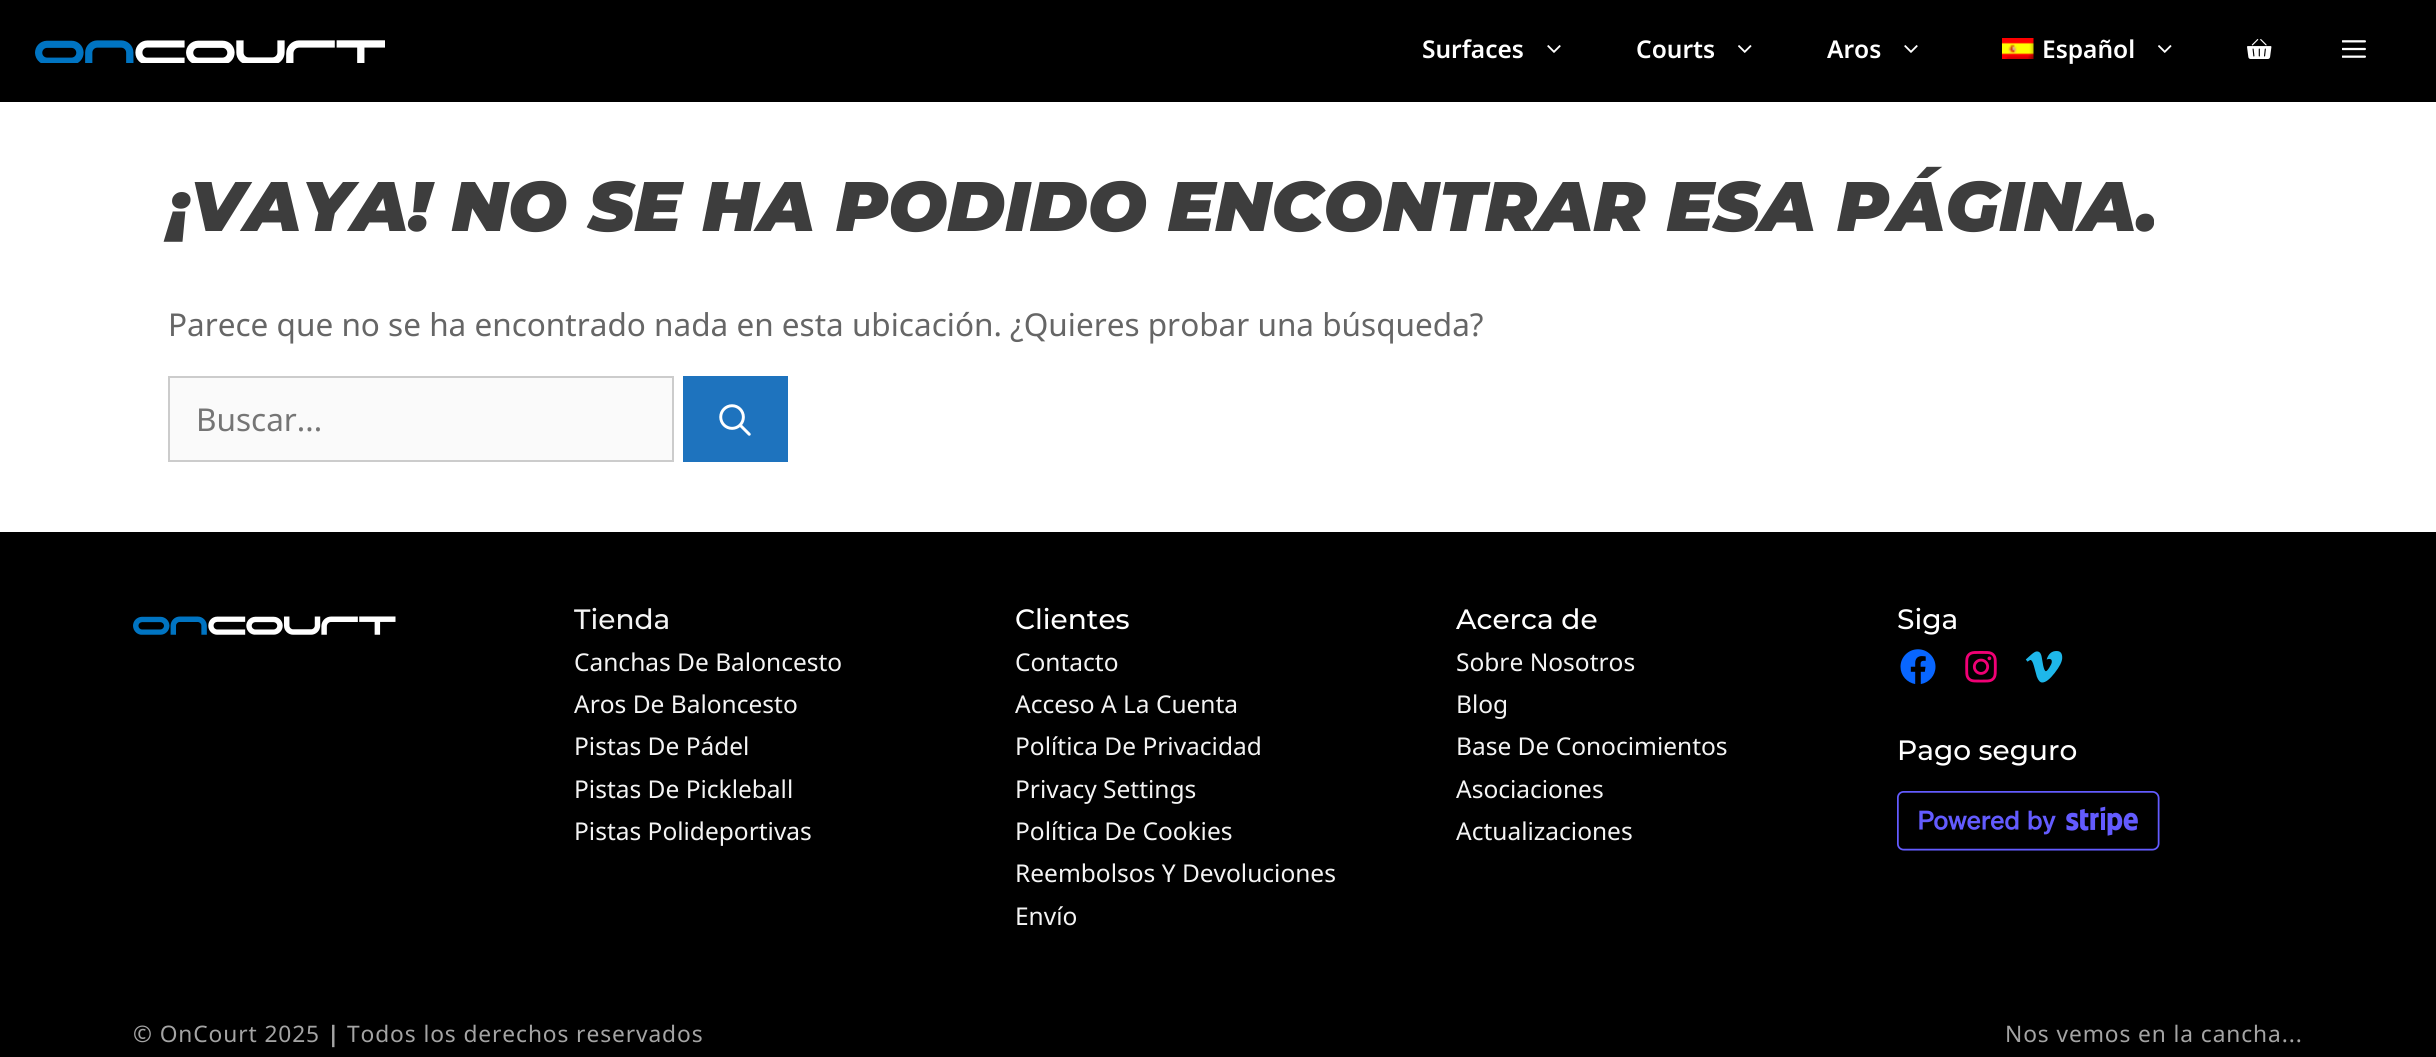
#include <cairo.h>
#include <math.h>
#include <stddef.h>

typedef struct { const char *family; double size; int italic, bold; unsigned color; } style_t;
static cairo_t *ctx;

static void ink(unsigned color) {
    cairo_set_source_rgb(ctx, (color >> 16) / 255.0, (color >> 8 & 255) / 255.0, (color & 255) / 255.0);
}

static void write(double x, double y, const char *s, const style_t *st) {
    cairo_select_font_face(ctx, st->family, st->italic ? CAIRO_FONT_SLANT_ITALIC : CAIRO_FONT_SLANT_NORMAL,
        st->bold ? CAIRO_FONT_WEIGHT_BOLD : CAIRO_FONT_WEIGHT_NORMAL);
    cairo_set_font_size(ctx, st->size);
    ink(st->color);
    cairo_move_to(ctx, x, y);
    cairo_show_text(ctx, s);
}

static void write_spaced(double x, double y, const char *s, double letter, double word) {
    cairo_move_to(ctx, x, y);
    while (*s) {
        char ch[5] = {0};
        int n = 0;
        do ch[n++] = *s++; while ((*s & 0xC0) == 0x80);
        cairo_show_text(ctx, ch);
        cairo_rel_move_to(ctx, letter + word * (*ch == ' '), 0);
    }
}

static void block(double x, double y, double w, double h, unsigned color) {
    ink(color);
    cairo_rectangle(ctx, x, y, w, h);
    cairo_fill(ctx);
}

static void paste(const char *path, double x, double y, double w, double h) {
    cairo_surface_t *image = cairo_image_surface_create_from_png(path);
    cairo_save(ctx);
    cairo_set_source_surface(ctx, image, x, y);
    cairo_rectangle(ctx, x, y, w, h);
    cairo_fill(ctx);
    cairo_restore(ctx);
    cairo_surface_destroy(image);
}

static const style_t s1 = {"Noto Sans SemiBold", 24.5, 0, 0, 0xffffff};
static const style_t s2 = {"Montserrat Black", 70, 1, 0, 0x3d3d3d};
static const style_t s3 = {"Noto Sans", 31.5, 0, 0, 0x666666};
static const style_t s4 = {"Noto Sans", 31.5, 0, 0, 0x757575};
static const style_t s5 = {"Montserrat Medium", 28, 0, 0, 0xf4f4f4};
static const style_t s6 = {"Noto Sans", 24.5, 0, 0, 0xf4f4f4};
static const style_t s7 = {"Montserrat Medium", 28, 0, 0, 0xffffff};

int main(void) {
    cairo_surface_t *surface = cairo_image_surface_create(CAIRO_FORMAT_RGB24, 2436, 1057);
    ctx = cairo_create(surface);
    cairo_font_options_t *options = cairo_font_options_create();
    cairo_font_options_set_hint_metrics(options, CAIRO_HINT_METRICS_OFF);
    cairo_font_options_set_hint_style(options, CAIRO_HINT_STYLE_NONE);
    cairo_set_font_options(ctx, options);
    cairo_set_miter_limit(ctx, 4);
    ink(0xffffff);
    cairo_paint(ctx);
    block(0, 0, 2436, 102, 0x000000);
    paste("pic1.png", 35, 40, 350, 23);
    write(1422, 58, "Surfaces", &s1);
    paste("pic2.png", 1547, 45, 14, 8);
    write(1636, 58, "Courts", &s1);
    paste("pic3.png", 1738, 45, 14, 8);
    write(1827, 58, "Aros", &s1);
    paste("pic2.png", 1904, 45, 14, 8);
    paste("pic4.png", 2002, 38, 32, 21);
    write(2042, 58, "Español", &s1);
    paste("pic3.png", 2158, 45, 14, 8);
    paste("pic5.png", 2247, 39, 25, 20);
    paste("pic6.png", 2342, 40, 24, 18);
    write(168, 231, "¡VAYA! NO SE HA PODIDO ENCONTRAR ESA PÁGINA.", &s2);
    write(168, 336, "Parece que no se ha encontrado nada en esta ubicación. ¿Quieres probar una búsqueda?", &s3);
    ink(0xfafafa);
    cairo_rectangle(ctx, 169, 377, 504, 84);
    cairo_fill_preserve(ctx);
    ink(0xcccccc);
    cairo_stroke(ctx);
    write(196, 431, "Buscar...", &s4);
    block(683, 376, 105, 86, 0x1e73be);
    paste("pic7.png", 719, 404, 32, 32);
    block(0, 532, 2436, 525, 0x000000);
    paste("pic8.png", 133, 616, 263, 19);
    write(574, 629, "Tienda", &s5);
    write(574, 671, "Canchas De Baloncesto", &s6);
    write(574, 713, "Aros De Baloncesto", &s6);
    write(574, 755, "Pistas De Pádel", &s6);
    write(574, 798, "Pistas De Pickleball", &s6);
    write(574, 840, "Pistas Polideportivas", &s6);
    write(1015, 629, "Clientes", &s7);
    write(1015, 671, "Contacto", &s6);
    write(1015, 713, "Acceso A La Cuenta", &s6);
    write(1015, 755, "Política De Privacidad", &s6);
    write(1015, 798, "Privacy Settings", &s6);
    write(1015, 840, "Política De Cookies", &s6);
    write(1015, 882, "Reembolsos Y Devoluciones", &s6);
    write(1015, 925, "Envío", &s6);
    write(1456, 629, "Acerca de", &s7);
    write(1456, 671, "Sobre Nosotros", &s6);
    write(1456, 713, "Blog", &s6);
    write(1456, 755, "Base De Conocimientos", &s6);
    write(1456, 798, "Asociaciones", &s6);
    write(1456, 840, "Actualizaciones", &s6);
    write(1897, 629, "Siga", &s7);
    paste("pic9.png", 1900, 649, 36, 35);
    paste("pic10.png", 1965, 651, 32, 32);
    paste("pic11.png", 2025, 651, 38, 32);
    write(1897, 760, "Pago seguro", &s7);
    paste("pic12.png", 1897, 791, 263, 60);
    cairo_select_font_face(ctx, "Noto Sans", CAIRO_FONT_SLANT_NORMAL, CAIRO_FONT_WEIGHT_NORMAL);
    cairo_set_font_size(ctx, 22.75);
    ink(0xa4a4a4);
    write_spaced(133, 1042, "© OnCourt 2025", 0.9, 0);
    cairo_select_font_face(ctx, "Noto Sans", CAIRO_FONT_SLANT_NORMAL, CAIRO_FONT_WEIGHT_BOLD);
    write_spaced(327, 1042, "|", 0.9, 0);
    cairo_select_font_face(ctx, "Noto Sans", CAIRO_FONT_SLANT_NORMAL, CAIRO_FONT_WEIGHT_NORMAL);
    write_spaced(347, 1042, "Todos los derechos reservados", 0.9, 0);
    write_spaced(2005, 1042, "Nos vemos en la cancha...", 0.9, 0);
    cairo_surface_write_to_png(surface, "screenshot.png");
    cairo_font_options_destroy(options);
    cairo_destroy(ctx);
    cairo_surface_destroy(surface);
    return 0;
}
